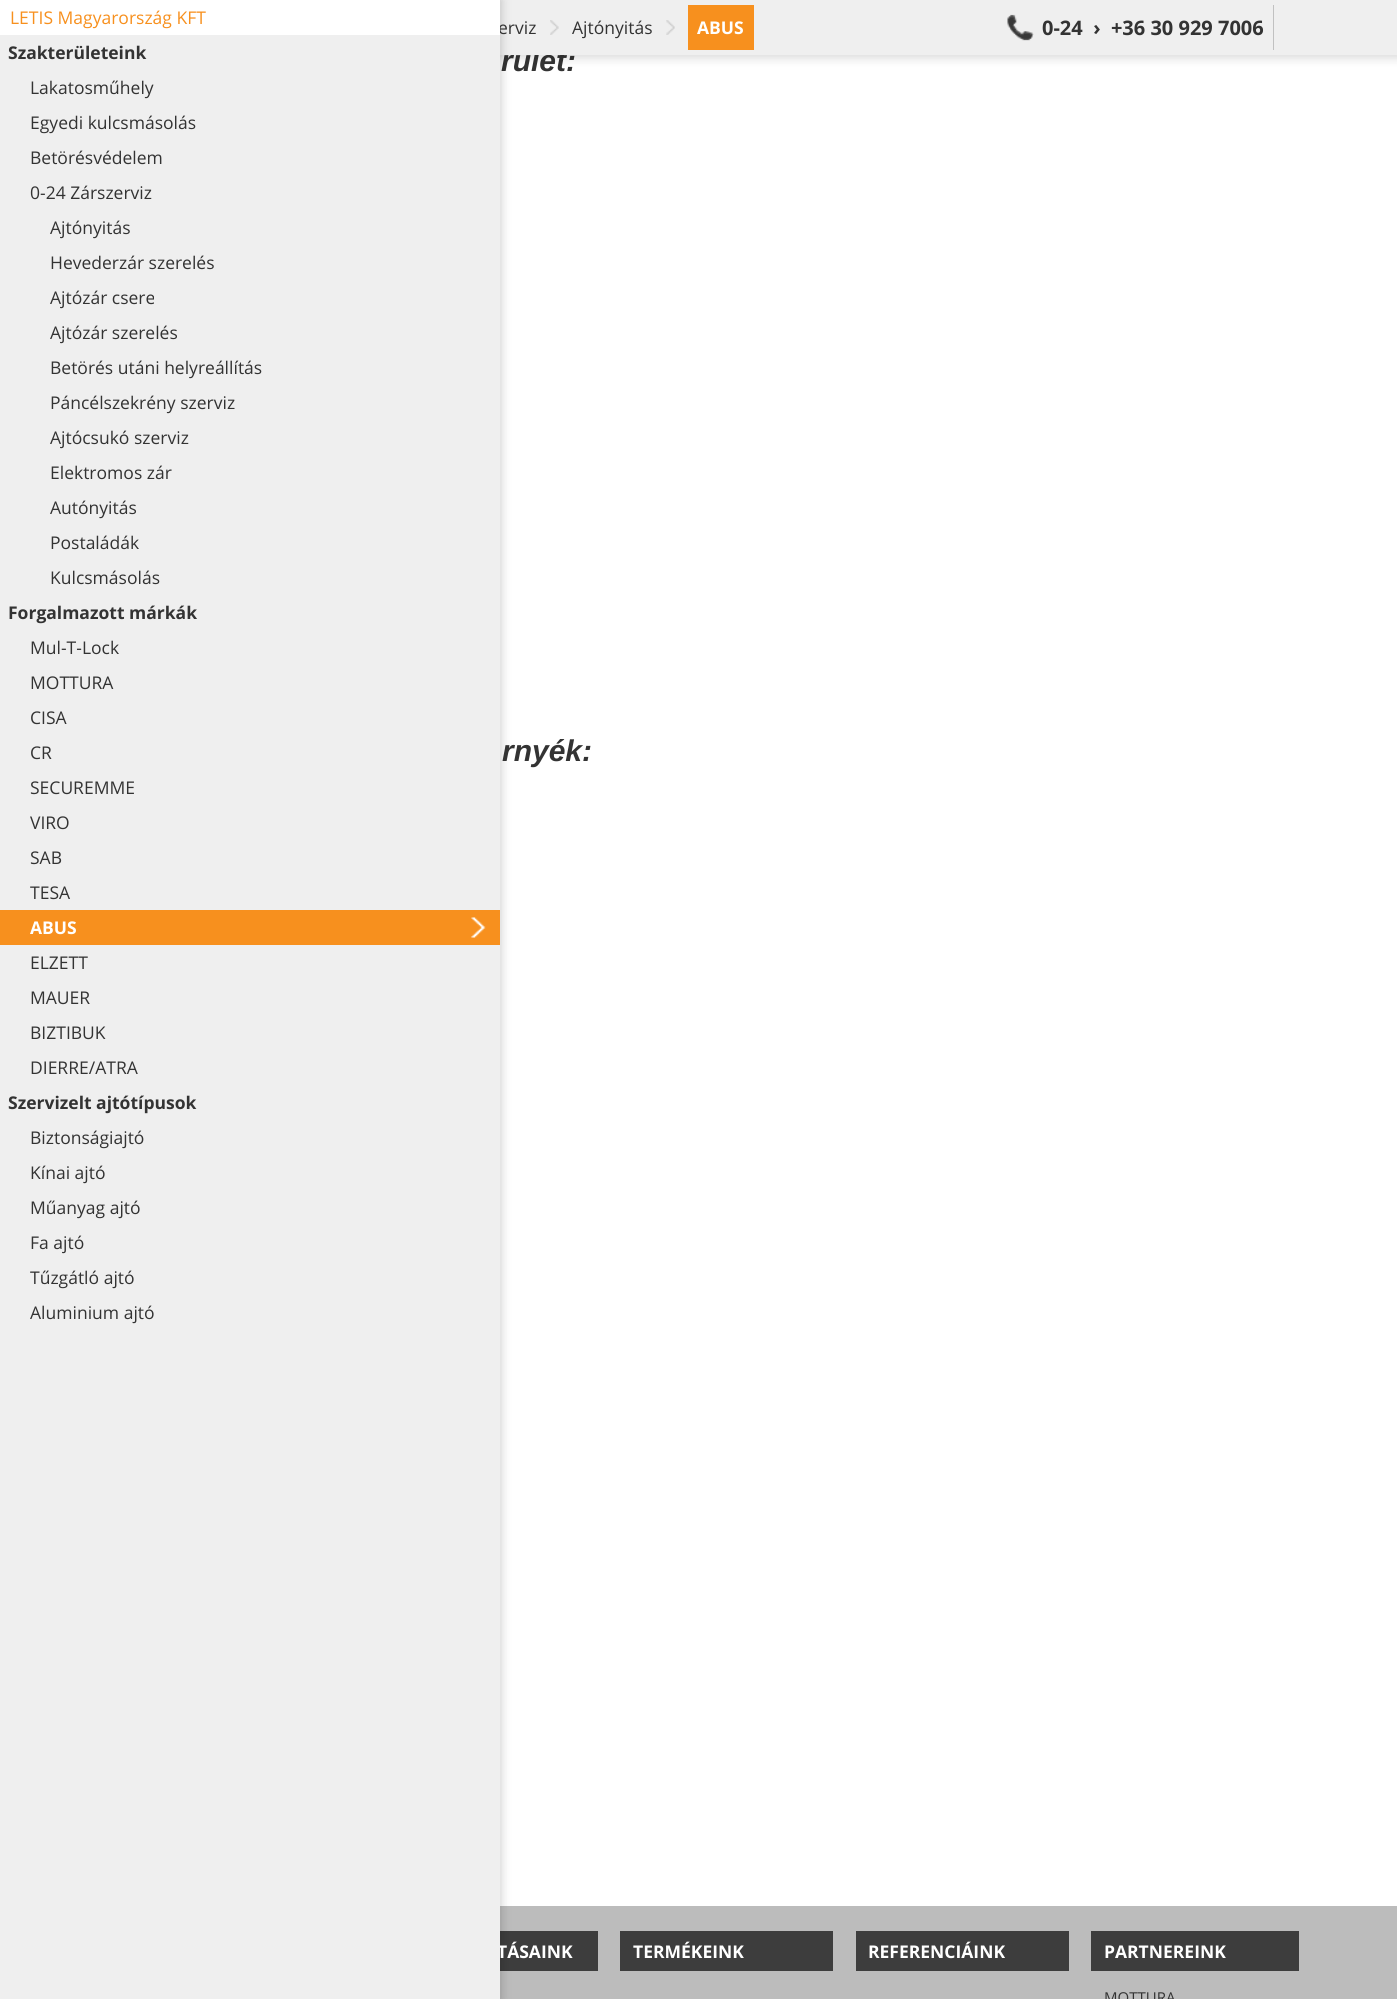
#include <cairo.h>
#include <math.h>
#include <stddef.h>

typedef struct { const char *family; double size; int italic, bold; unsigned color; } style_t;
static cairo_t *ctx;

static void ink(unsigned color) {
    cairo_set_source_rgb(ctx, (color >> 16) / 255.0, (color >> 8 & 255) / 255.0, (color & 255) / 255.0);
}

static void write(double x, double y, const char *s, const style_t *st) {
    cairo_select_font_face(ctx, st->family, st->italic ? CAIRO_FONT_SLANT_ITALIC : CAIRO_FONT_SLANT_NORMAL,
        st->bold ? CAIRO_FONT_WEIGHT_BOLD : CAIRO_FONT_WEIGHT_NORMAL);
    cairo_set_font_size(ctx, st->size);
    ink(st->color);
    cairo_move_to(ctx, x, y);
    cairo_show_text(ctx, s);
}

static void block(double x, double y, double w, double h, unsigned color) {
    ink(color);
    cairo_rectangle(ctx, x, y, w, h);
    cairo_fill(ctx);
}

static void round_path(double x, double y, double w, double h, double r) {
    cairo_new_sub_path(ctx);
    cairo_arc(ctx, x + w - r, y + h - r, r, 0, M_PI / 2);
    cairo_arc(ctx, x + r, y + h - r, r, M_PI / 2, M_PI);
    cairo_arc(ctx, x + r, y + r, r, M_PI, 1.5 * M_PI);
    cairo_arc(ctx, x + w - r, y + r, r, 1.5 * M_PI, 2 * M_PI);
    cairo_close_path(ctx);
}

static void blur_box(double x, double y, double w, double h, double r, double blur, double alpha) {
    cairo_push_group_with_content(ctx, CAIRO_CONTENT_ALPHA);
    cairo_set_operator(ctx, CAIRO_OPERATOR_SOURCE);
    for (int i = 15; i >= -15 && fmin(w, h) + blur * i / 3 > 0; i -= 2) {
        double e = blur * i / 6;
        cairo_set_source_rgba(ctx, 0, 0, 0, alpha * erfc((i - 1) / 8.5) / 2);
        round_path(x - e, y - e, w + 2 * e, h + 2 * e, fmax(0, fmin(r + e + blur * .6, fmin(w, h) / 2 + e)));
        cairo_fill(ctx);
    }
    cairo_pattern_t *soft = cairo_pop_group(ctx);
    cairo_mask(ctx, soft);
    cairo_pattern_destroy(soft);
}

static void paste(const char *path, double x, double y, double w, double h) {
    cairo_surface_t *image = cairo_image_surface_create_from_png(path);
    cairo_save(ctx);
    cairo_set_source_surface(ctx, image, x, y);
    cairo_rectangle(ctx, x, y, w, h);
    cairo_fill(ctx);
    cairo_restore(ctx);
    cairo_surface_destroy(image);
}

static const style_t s1 = {"Liberation Sans", 30, 1, 1, 0x333333};
static const style_t s2 = {"Open Sans", 17.5, 0, 1, 0xffffff};
static const style_t s3 = {"Open Sans", 17.5, 0, 0, 0x333333};
static const style_t s4 = {"Open Sans", 17.5, 0, 0, 0xf7901e};
static const style_t s5 = {"Open Sans", 17.5, 0, 1, 0x333333};
static const style_t s6 = {"Open Sans", 20, 0, 1, 0x333333};
static const style_t s7 = {"Open Sans", 15, 0, 0, 0x333333};

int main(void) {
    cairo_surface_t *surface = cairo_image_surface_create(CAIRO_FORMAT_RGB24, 1397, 1999);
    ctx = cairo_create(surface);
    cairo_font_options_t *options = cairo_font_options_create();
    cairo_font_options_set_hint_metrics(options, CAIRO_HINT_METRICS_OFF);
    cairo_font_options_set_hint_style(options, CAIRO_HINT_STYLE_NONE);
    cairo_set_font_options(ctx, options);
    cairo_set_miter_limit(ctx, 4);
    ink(0xffffff);
    cairo_paint(ctx);
    write(501, 71, "rület:", &s1);
    ink(0x000000);
    blur_box(1, 3, 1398, 55, 0, 5, 0.15);
    block(500, 0, 897, 55, 0xefefef);
    block(500, 1906, 897, 93, 0xbcbcbc);
    block(500, 1931, 98, 40, 0x3d3d3d);
    ink(0x000000);
    blur_box(1, 0, 500, 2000, 0, 5, 0.2);
    write(497, 1958, "TÁSAINK", &s2);
    block(0, 35, 500, 1964, 0xefefef);
    write(498, 34, "erviz", &s3);
    block(0, 0, 500, 35, 0xffffff);
    write(10, 24, "LETIS Magyarország KFT", &s4);
    write(8, 59, "Szakterületeink", &s5);
    write(30, 94, "Lakatosműhely", &s3);
    write(30, 129, "Egyedi kulcsmásolás", &s3);
    write(30, 164, "Betörésvédelem", &s3);
    write(30, 199, "0-24 Zárszerviz", &s3);
    write(50, 234, "Ajtónyitás", &s3);
    write(50, 269, "Hevederzár szerelés", &s3);
    write(50, 304, "Ajtózár csere", &s3);
    write(50, 339, "Ajtózár szerelés", &s3);
    write(50, 374, "Betörés utáni helyreállítás", &s3);
    write(50, 409, "Páncélszekrény szerviz", &s3);
    write(50, 444, "Ajtócsukó szerviz", &s3);
    write(50, 479, "Elektromos zár", &s3);
    write(50, 514, "Autónyitás", &s3);
    write(50, 549, "Postaládák", &s3);
    write(50, 584, "Kulcsmásolás", &s3);
    write(8, 619, "Forgalmazott márkák", &s5);
    write(30, 654, "Mul-T-Lock", &s3);
    write(30, 689, "MOTTURA", &s3);
    write(30, 724, "CISA", &s3);
    write(30, 759, "CR", &s3);
    write(30, 794, "SECUREMME", &s3);
    write(30, 829, "VIRO", &s3);
    write(30, 864, "SAB", &s3);
    write(30, 899, "TESA", &s3);
    block(0, 910, 500, 35, 0xf7901e);
    paste("pic1.png", 471, 917, 15, 21);
    write(30, 934, "ABUS", &s2);
    write(30, 969, "ELZETT", &s3);
    write(30, 1004, "MAUER", &s3);
    write(30, 1039, "BIZTIBUK", &s3);
    write(30, 1074, "DIERRE/ATRA", &s3);
    write(8, 1109, "Szervizelt ajtótípusok", &s5);
    write(30, 1144, "Biztonságiajtó", &s3);
    write(30, 1179, "Kínai ajtó", &s3);
    write(30, 1214, "Műanyag ajtó", &s3);
    write(30, 1249, "Fa ajtó", &s3);
    write(30, 1284, "Tűzgátló ajtó", &s3);
    write(30, 1319, "Aluminium ajtó", &s3);
    write(502, 761, "rnyék:", &s1);
    paste("pic2.png", 550, 20, 9, 15);
    paste("pic3.png", 666, 20, 9, 15);
    write(572, 34, "Ajtónyitás", &s3);
    block(688, 5, 66, 45, 0xf7901e);
    write(697, 34, "ABUS", &s2);
    block(1007, 5, 267, 45, 0x333333);
    paste("pic4.png", 1003, 5, 271, 45);
    write(1042, 35, "0-24  ›  +36 30 929 7006", &s6);
    block(620, 1931, 213, 40, 0x3d3d3d);
    write(633, 1958, "TERMÉKEINK", &s2);
    block(856, 1931, 213, 40, 0x3d3d3d);
    write(868, 1958, "REFERENCIÁINK", &s2);
    block(1091, 1931, 208, 40, 0x3d3d3d);
    write(1104, 1958, "PARTNEREINK", &s2);
    write(1104, 2003, "MOTTURA", &s7);
    cairo_surface_write_to_png(surface, "screenshot.png");
    cairo_font_options_destroy(options);
    cairo_destroy(ctx);
    cairo_surface_destroy(surface);
    return 0;
}
